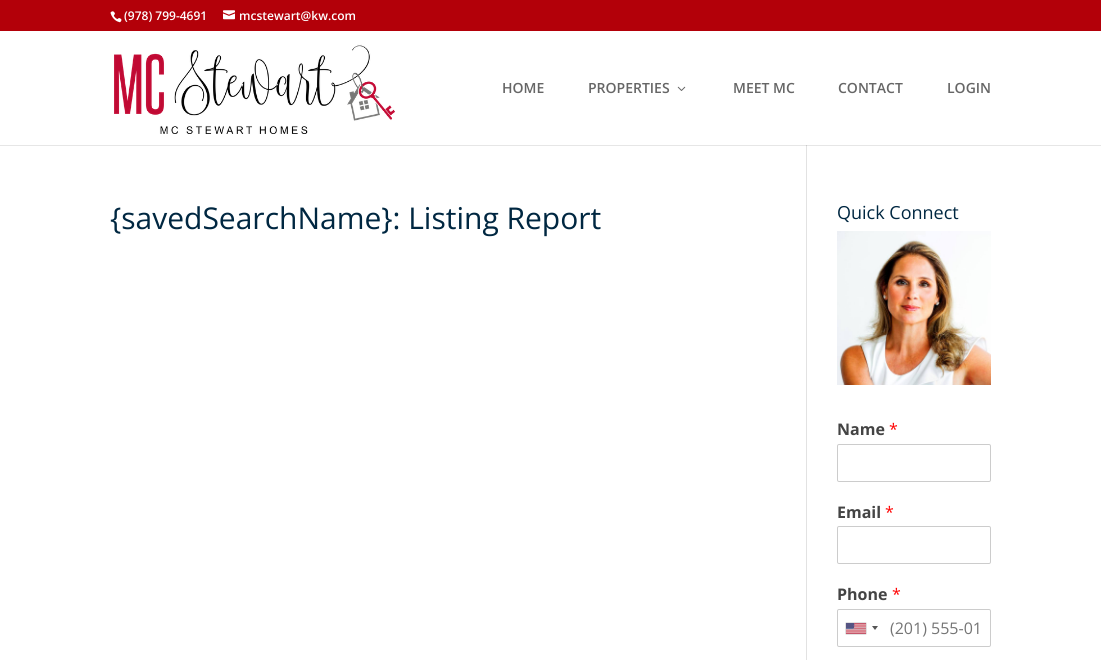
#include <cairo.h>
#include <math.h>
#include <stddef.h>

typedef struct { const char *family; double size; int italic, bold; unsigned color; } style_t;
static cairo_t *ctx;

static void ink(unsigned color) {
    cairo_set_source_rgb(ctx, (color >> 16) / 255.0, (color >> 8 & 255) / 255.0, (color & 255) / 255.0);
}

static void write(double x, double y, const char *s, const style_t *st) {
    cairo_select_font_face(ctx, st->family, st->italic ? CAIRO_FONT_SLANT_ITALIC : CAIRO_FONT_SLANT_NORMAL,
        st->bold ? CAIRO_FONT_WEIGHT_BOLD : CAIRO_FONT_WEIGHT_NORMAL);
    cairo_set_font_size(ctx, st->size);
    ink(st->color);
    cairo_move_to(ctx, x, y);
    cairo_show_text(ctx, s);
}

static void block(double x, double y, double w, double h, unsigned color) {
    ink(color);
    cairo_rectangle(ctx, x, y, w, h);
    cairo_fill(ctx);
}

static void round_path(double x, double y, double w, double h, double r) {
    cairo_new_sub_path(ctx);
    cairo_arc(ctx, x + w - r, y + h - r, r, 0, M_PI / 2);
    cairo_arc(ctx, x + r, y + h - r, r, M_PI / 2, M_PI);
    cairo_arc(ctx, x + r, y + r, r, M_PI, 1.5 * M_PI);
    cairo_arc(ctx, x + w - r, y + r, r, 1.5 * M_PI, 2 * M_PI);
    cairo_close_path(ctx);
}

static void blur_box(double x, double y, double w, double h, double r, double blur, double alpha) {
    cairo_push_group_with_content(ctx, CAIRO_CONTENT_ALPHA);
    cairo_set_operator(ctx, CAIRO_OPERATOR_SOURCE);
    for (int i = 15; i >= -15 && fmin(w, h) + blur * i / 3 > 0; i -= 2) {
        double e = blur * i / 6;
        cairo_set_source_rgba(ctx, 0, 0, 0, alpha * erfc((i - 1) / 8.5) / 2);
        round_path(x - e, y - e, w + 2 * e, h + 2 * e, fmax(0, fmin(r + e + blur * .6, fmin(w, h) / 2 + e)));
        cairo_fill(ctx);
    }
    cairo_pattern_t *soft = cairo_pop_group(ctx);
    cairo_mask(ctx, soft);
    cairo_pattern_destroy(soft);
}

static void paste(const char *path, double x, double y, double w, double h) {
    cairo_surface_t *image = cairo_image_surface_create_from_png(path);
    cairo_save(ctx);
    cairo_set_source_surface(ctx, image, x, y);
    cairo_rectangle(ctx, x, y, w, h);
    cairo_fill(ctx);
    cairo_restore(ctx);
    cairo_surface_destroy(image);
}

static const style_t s1 = {"Open Sans SemiBold", 12, 0, 0, 0xffffff};
static const style_t s2 = {"Open Sans SemiBold", 14, 0, 0, 0x666666};
static const style_t s3 = {"Open Sans", 30, 0, 0, 0x002741};
static const style_t s4 = {"Open Sans", 18, 0, 0, 0x002741};
static const style_t s5 = {"Open Sans", 16, 0, 1, 0x444444};
static const style_t s6 = {"Open Sans", 16, 0, 0, 0xff0000};
static const style_t s7 = {"Open Sans", 16, 0, 0, 0x757575};

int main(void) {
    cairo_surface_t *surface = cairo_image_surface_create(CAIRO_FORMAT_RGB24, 1101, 660);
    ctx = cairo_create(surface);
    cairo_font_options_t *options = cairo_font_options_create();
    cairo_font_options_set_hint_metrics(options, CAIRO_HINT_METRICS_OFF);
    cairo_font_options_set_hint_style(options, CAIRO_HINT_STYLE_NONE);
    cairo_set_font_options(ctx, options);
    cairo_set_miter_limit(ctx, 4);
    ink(0xffffff);
    cairo_paint(ctx);
    block(0, 145, 1101, 1, 0xe6e6e6);
    block(0, 0, 1101, 31, 0xb30009);
    paste("pic1.png", 110, 11, 12, 12);
    write(124, 20, "(978) 799-4691", &s1);
    paste("pic2.png", 223, 10, 12, 10);
    write(239, 20, "mcstewart@kw.com", &s1);
    paste("pic3.png", 114, 44, 281, 90);
    write(502, 93, "HOME", &s2);
    write(588, 93, "PROPERTIES", &s2);
    paste("pic4.png", 677, 86, 9, 5);
    write(733, 93, "MEET MC", &s2);
    write(838, 93, "CONTACT", &s2);
    write(947, 93, "LOGIN", &s2);
    block(806, 145, 1, 515, 0xe2e2e2);
    block(806, 145, 1, 1, 0xcbcbcb);
    write(110, 229, "{savedSearchName}: Listing Report", &s3);
    write(837, 219, "Quick Connect", &s4);
    paste("pic5.png", 837, 231, 154, 154);
    write(837, 435, "Name", &s5);
    write(889, 435, "*", &s6);
    round_path(837.5, 444.5, 153, 37, 1.5);
    ink(0xcccccc);
    cairo_set_line_width(ctx, 1);
    cairo_stroke(ctx);
    write(837, 518, "Email", &s5);
    write(885, 518, "*", &s6);
    round_path(837.5, 526.5, 153, 37, 1.5);
    ink(0xcccccc);
    cairo_stroke(ctx);
    write(837, 600, "Phone", &s5);
    write(892, 600, "*", &s6);
    round_path(837.5, 609.5, 153, 37, 1.5);
    ink(0xcccccc);
    cairo_stroke(ctx);
    ink(0x888888);
    blur_box(846, 623, 20, 11, 0, 0.5, 1);
    paste("pic6.png", 846, 623, 20, 11);
    ink(0x555555);
    cairo_new_path(ctx);
    cairo_move_to(ctx, 872, 626);
    cairo_line_to(ctx, 878, 626);
    cairo_line_to(ctx, 875, 630);
    cairo_close_path(ctx);
    cairo_fill(ctx);
    write(890, 634, "(201) 555-01", &s7);
    cairo_surface_write_to_png(surface, "screenshot.png");
    cairo_font_options_destroy(options);
    cairo_destroy(ctx);
    cairo_surface_destroy(surface);
    return 0;
}
